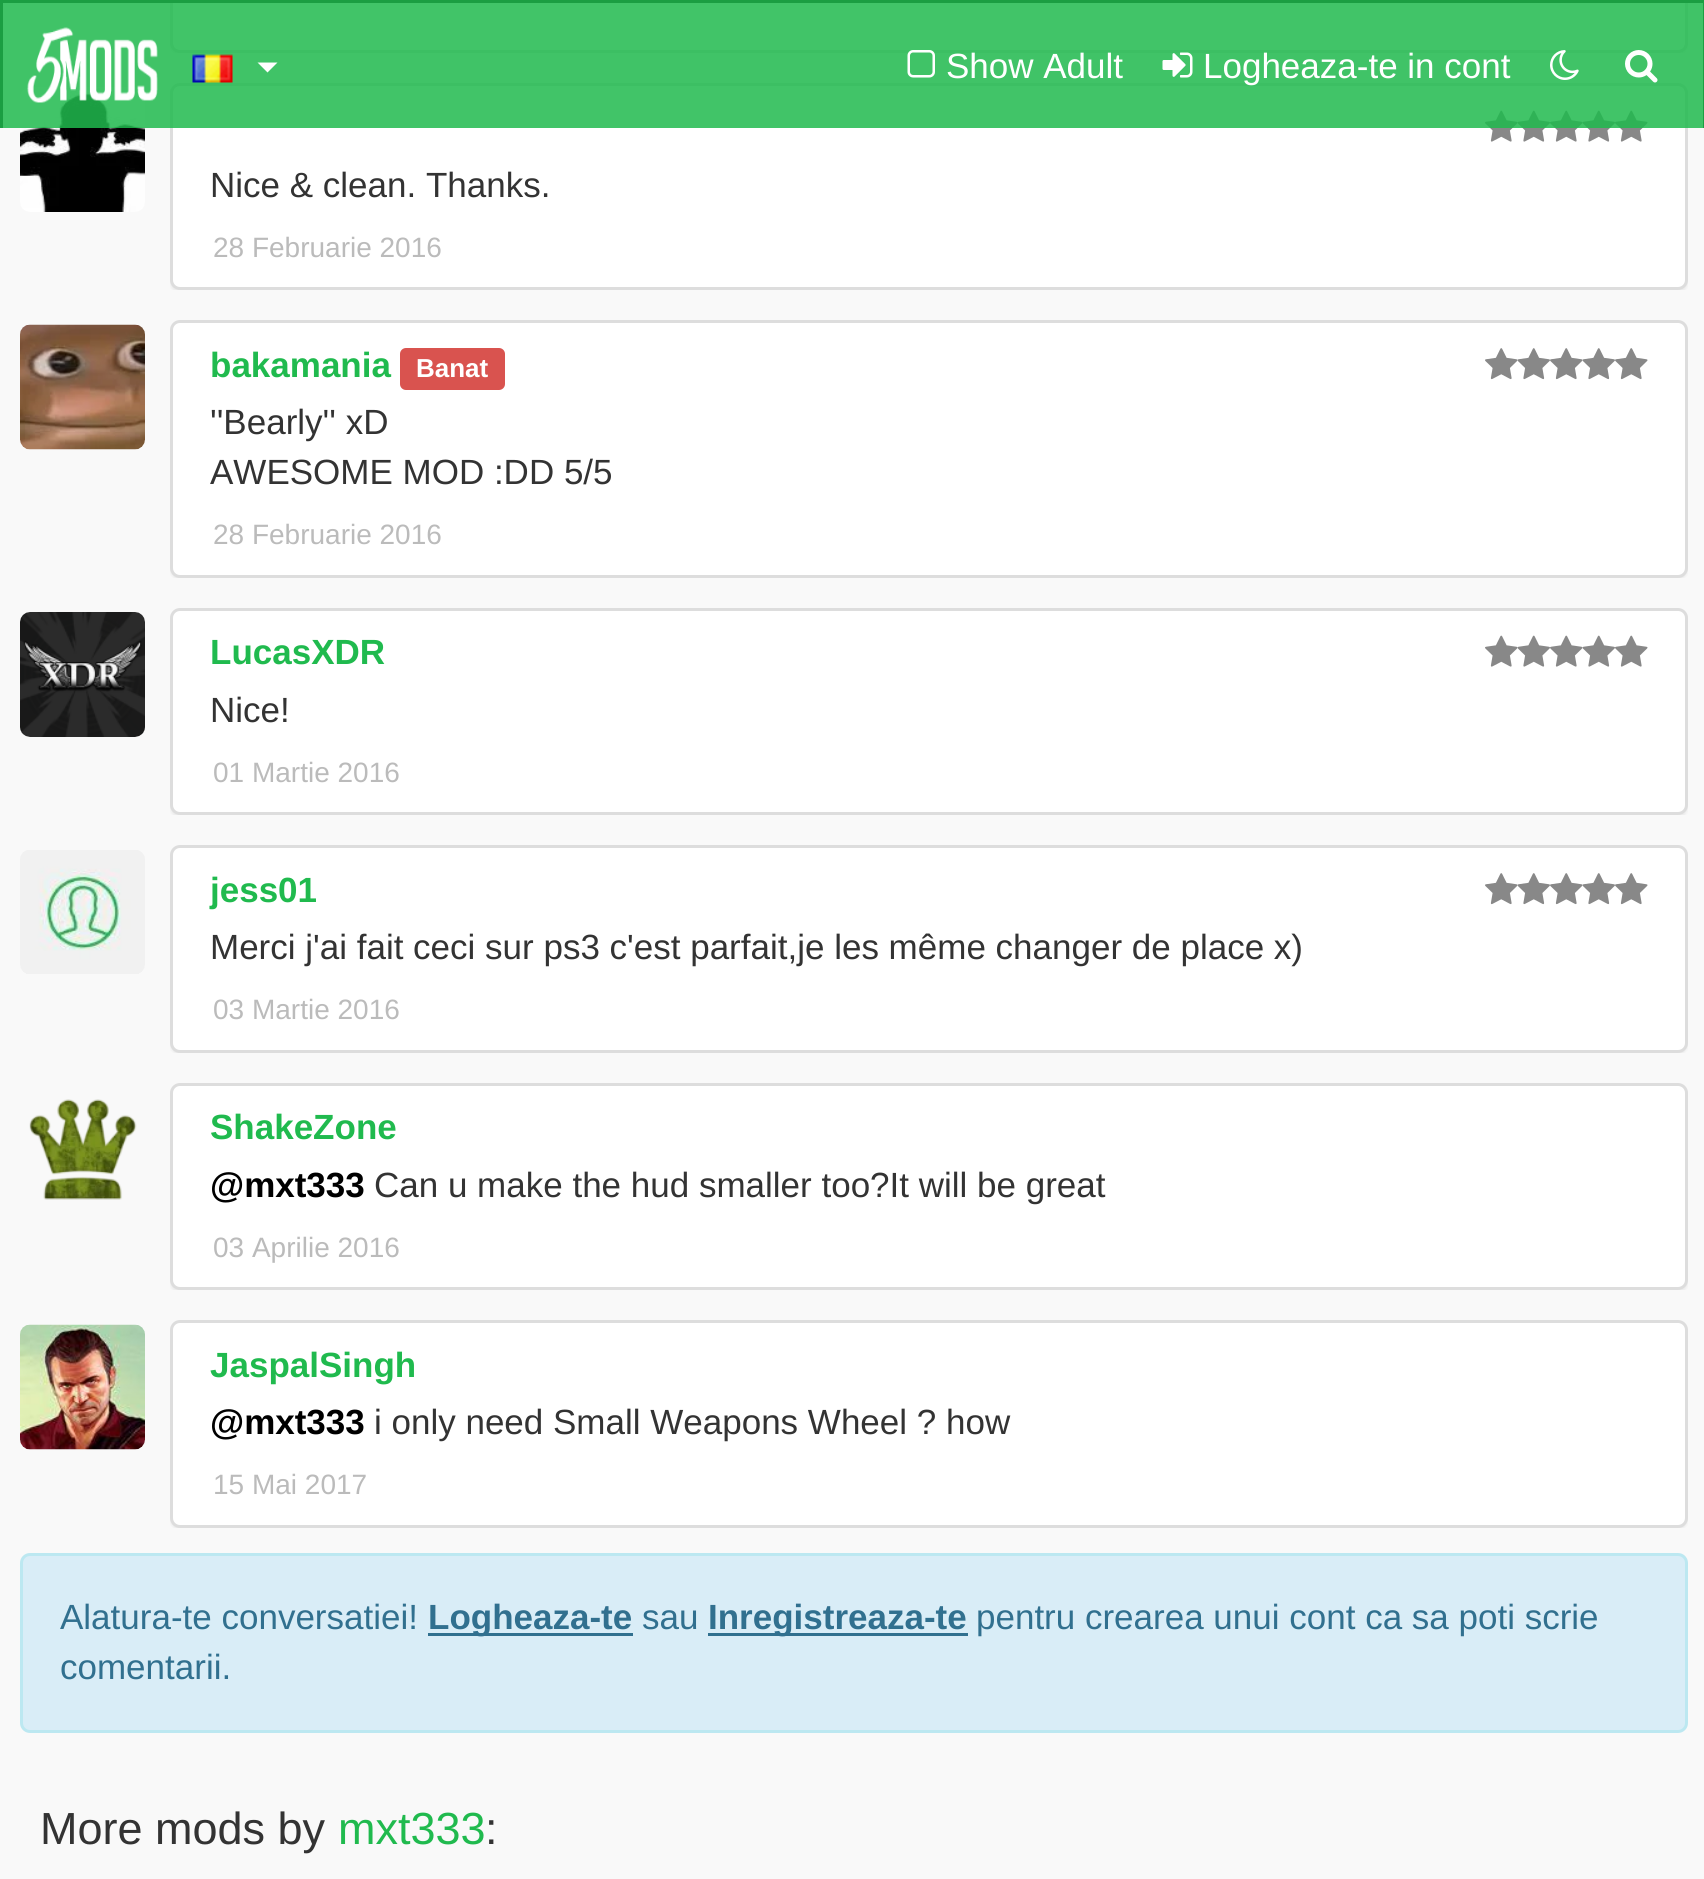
#include <cairo.h>
#include <math.h>
#include <stddef.h>

typedef struct { const char *family; double size; int italic, bold; unsigned color; } style_t;
static cairo_t *ctx;

static void ink(unsigned color) {
    cairo_set_source_rgb(ctx, (color >> 16) / 255.0, (color >> 8 & 255) / 255.0, (color & 255) / 255.0);
}

static void write(double x, double y, const char *s, const style_t *st) {
    cairo_select_font_face(ctx, st->family, st->italic ? CAIRO_FONT_SLANT_ITALIC : CAIRO_FONT_SLANT_NORMAL,
        st->bold ? CAIRO_FONT_WEIGHT_BOLD : CAIRO_FONT_WEIGHT_NORMAL);
    cairo_set_font_size(ctx, st->size);
    ink(st->color);
    cairo_move_to(ctx, x, y);
    cairo_show_text(ctx, s);
}

static void block(double x, double y, double w, double h, unsigned color) {
    ink(color);
    cairo_rectangle(ctx, x, y, w, h);
    cairo_fill(ctx);
}

static void round_path(double x, double y, double w, double h, double r) {
    cairo_new_sub_path(ctx);
    cairo_arc(ctx, x + w - r, y + h - r, r, 0, M_PI / 2);
    cairo_arc(ctx, x + r, y + h - r, r, M_PI / 2, M_PI);
    cairo_arc(ctx, x + r, y + r, r, M_PI, 1.5 * M_PI);
    cairo_arc(ctx, x + w - r, y + r, r, 1.5 * M_PI, 2 * M_PI);
    cairo_close_path(ctx);
}

static void blur_box(double x, double y, double w, double h, double r, double blur, double alpha) {
    cairo_push_group_with_content(ctx, CAIRO_CONTENT_ALPHA);
    cairo_set_operator(ctx, CAIRO_OPERATOR_SOURCE);
    for (int i = 15; i >= -15 && fmin(w, h) + blur * i / 3 > 0; i -= 2) {
        double e = blur * i / 6;
        cairo_set_source_rgba(ctx, 0, 0, 0, alpha * erfc((i - 1) / 8.5) / 2);
        round_path(x - e, y - e, w + 2 * e, h + 2 * e, fmax(0, fmin(r + e + blur * .6, fmin(w, h) / 2 + e)));
        cairo_fill(ctx);
    }
    cairo_pattern_t *soft = cairo_pop_group(ctx);
    cairo_mask(ctx, soft);
    cairo_pattern_destroy(soft);
}

static void paste(const char *path, double x, double y, double w, double h) {
    cairo_surface_t *image = cairo_image_surface_create_from_png(path);
    cairo_save(ctx);
    cairo_set_source_surface(ctx, image, x, y);
    cairo_rectangle(ctx, x, y, w, h);
    cairo_fill(ctx);
    cairo_restore(ctx);
    cairo_surface_destroy(image);
}

static const style_t s1 = {"Liberation Sans", 35, 0, 0, 0xffffff};
static const style_t s2 = {"Liberation Sans", 35, 0, 0, 0x333333};
static const style_t s3 = {"Liberation Sans", 28, 0, 0, 0xbbbbbb};
static const style_t s4 = {"Liberation Sans", 35, 0, 1, 0x20ba4e};
static const style_t s5 = {"Liberation Sans", 26, 0, 1, 0xffffff};
static const style_t s6 = {"Liberation Sans", 35, 0, 1, 0x000000};
static const style_t s7 = {"Liberation Sans", 35, 0, 0, 0x31708f};
static const style_t s8 = {"Liberation Sans", 35, 0, 1, 0x31708f};
static const style_t s9 = {"Liberation Sans", 45, 0, 0, 0x333333};
static const style_t s10 = {"Liberation Sans", 45, 0, 0, 0x20ba4e};

int main(void) {
    cairo_surface_t *surface = cairo_image_surface_create(CAIRO_FORMAT_RGB24, 1704, 1879);
    ctx = cairo_create(surface);
    cairo_font_options_t *options = cairo_font_options_create();
    cairo_font_options_set_hint_metrics(options, CAIRO_HINT_METRICS_OFF);
    cairo_font_options_set_hint_style(options, CAIRO_HINT_STYLE_NONE);
    cairo_set_font_options(ctx, options);
    cairo_set_miter_limit(ctx, 4);
    ink(0xf9f9f9);
    cairo_paint(ctx);
    cairo_save(ctx);
    cairo_rectangle(ctx, 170, 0, 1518, 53);
    cairo_clip(ctx);
    ink(0x000000);
    blur_box(170, -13, 1518, 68, 10, 1, 0.05);
    cairo_restore(ctx);
    ink(0xffffff);
    round_path(171.5, -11.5, 1515, 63, 8.5);
    cairo_fill_preserve(ctx);
    ink(0xdddddd);
    cairo_set_line_width(ctx, 3);
    cairo_stroke(ctx);
    paste("pic7.png", 20, 87, 125, 125);
    cairo_save(ctx);
    cairo_rectangle(ctx, 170, 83, 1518, 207);
    cairo_clip(ctx);
    ink(0x000000);
    blur_box(170, 85, 1518, 208, 10, 1, 0.05);
    cairo_restore(ctx);
    ink(0xffffff);
    round_path(171.5, 84.5, 1515, 204, 8.5);
    cairo_fill_preserve(ctx);
    ink(0xdddddd);
    cairo_stroke(ctx);
    paste("pic8.png", 1485, 110, 33, 32);
    paste("pic9.png", 1517, 110, 33, 32);
    paste("pic8.png", 1550, 110, 33, 32);
    paste("pic9.png", 1582, 110, 33, 32);
    paste("pic8.png", 1615, 110, 33, 32);
    cairo_set_source_rgba(ctx, 0.125, 0.729, 0.306, 0.85);
    cairo_rectangle(ctx, 3, 3, 1700, 125);
    cairo_fill(ctx);
    block(0, 0, 1704, 3, 0x1b9e42);
    block(1703, 0, 1, 128, 0x1b9e42);
    block(0, 0, 3, 128, 0x1b9e42);
    paste("pic1.png", 27, 27, 131, 76);
    paste("pic2.png", 192, 54, 41, 29);
    ink(0xffffff);
    cairo_new_path(ctx);
    cairo_move_to(ctx, 257.5, 62.5);
    cairo_line_to(ctx, 277.5, 62.5);
    cairo_line_to(ctx, 267.5, 72.5);
    cairo_close_path(ctx);
    cairo_fill(ctx);
    paste("pic3.png", 907, 50, 28, 28);
    write(946, 78, "Show Adult", &s1);
    paste("pic4.png", 1162, 52, 31, 26);
    write(1203, 78, "Logheaza-te in cont", &s1);
    paste("pic5.png", 1550, 50, 29, 30);
    paste("pic6.png", 1625, 50, 33, 33);
    write(210, 197, "Nice & clean. Thanks.", &s2);
    write(213, 257, "28 Februarie 2016", &s3);
    paste("pic10.png", 20, 324, 125, 126);
    cairo_save(ctx);
    cairo_rectangle(ctx, 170, 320, 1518, 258);
    cairo_clip(ctx);
    ink(0x000000);
    blur_box(170, 323, 1518, 257, 10, 1, 0.05);
    cairo_restore(ctx);
    ink(0xffffff);
    round_path(171.5, 321.5, 1515, 255, 8.5);
    cairo_fill_preserve(ctx);
    ink(0xdddddd);
    cairo_stroke(ctx);
    write(210, 377, "bakamania", &s4);
    ink(0xd9534f);
    round_path(400, 348, 105, 42, 6);
    cairo_fill(ctx);
    write(416, 377, "Banat", &s5);
    paste("pic11.png", 1485, 348, 33, 32);
    paste("pic12.png", 1517, 348, 33, 32);
    paste("pic11.png", 1550, 348, 33, 32);
    paste("pic12.png", 1582, 348, 33, 32);
    paste("pic11.png", 1615, 348, 33, 32);
    write(210, 434, "''Bearly'' xD", &s2);
    write(210, 484, "AWESOME MOD :DD 5/5", &s2);
    write(213, 544, "28 Februarie 2016", &s3);
    paste("pic13.png", 20, 612, 125, 125);
    cairo_save(ctx);
    cairo_rectangle(ctx, 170, 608, 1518, 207);
    cairo_clip(ctx);
    ink(0x000000);
    blur_box(170, 610, 1518, 208, 10, 1, 0.05);
    cairo_restore(ctx);
    ink(0xffffff);
    round_path(171.5, 609.5, 1515, 204, 8.5);
    cairo_fill_preserve(ctx);
    ink(0xdddddd);
    cairo_stroke(ctx);
    write(210, 664, "LucasXDR", &s4);
    paste("pic8.png", 1485, 635, 33, 32);
    paste("pic9.png", 1517, 635, 33, 32);
    paste("pic8.png", 1550, 635, 33, 32);
    paste("pic9.png", 1582, 635, 33, 32);
    paste("pic8.png", 1615, 635, 33, 32);
    write(210, 722, "Nice!", &s2);
    write(213, 782, "01 Martie 2016", &s3);
    paste("pic14.png", 20, 850, 125, 124);
    cairo_save(ctx);
    cairo_rectangle(ctx, 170, 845, 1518, 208);
    cairo_clip(ctx);
    ink(0x000000);
    blur_box(170, 848, 1518, 207, 10, 1, 0.05);
    cairo_restore(ctx);
    ink(0xffffff);
    round_path(171.5, 846.5, 1515, 205, 8.5);
    cairo_fill_preserve(ctx);
    ink(0xdddddd);
    cairo_stroke(ctx);
    write(210, 902, "jess01", &s4);
    paste("pic11.png", 1485, 873, 33, 32);
    paste("pic12.png", 1517, 873, 33, 32);
    paste("pic11.png", 1550, 873, 33, 32);
    paste("pic12.png", 1582, 873, 33, 32);
    paste("pic11.png", 1615, 873, 33, 32);
    write(210, 959, "Merci j'ai fait ceci sur ps3 c'est parfait,je les même changer de place x)", &s2);
    write(213, 1019, "03 Martie 2016", &s3);
    paste("pic15.png", 29, 1099, 108, 101);
    cairo_save(ctx);
    cairo_rectangle(ctx, 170, 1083, 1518, 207);
    cairo_clip(ctx);
    ink(0x000000);
    blur_box(170, 1085, 1518, 208, 10, 1, 0.05);
    cairo_restore(ctx);
    ink(0xffffff);
    round_path(171.5, 1084.5, 1515, 204, 8.5);
    cairo_fill_preserve(ctx);
    ink(0xdddddd);
    cairo_stroke(ctx);
    write(210, 1139, "ShakeZone", &s4);
    write(210, 1197, "@mxt333", &s6);
    write(374, 1197, "Can u make the hud smaller too?It will be great", &s2);
    write(213, 1257, "03 Aprilie 2016", &s3);
    paste("pic16.png", 20, 1324, 125, 126);
    cairo_save(ctx);
    cairo_rectangle(ctx, 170, 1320, 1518, 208);
    cairo_clip(ctx);
    ink(0x000000);
    blur_box(170, 1323, 1518, 207, 10, 1, 0.05);
    cairo_restore(ctx);
    ink(0xffffff);
    round_path(171.5, 1321.5, 1515, 205, 8.5);
    cairo_fill_preserve(ctx);
    ink(0xdddddd);
    cairo_stroke(ctx);
    write(210, 1377, "JaspalSingh", &s4);
    write(210, 1434, "@mxt333", &s6);
    write(374, 1434, "i only need Small Weapons Wheel ? how", &s2);
    write(213, 1494, "15 Mai 2017", &s3);
    ink(0xd9edf7);
    round_path(21.5, 1554.5, 1665, 177, 8.5);
    cairo_fill_preserve(ctx);
    ink(0xbce8f1);
    cairo_stroke(ctx);
    write(60, 1629, "Alatura-te conversatiei!", &s7);
    block(428, 1633, 205, 3, 0x31708f);
    write(428, 1629, "Logheaza-te", &s8);
    write(642, 1629, "sau", &s7);
    block(708, 1633, 260, 3, 0x31708f);
    write(708, 1629, "Inregistreaza-te", &s8);
    write(976, 1629, "pentru crearea unui cont ca sa poti scrie", &s7);
    write(60, 1679, "comentarii.", &s7);
    write(40, 1844, "More mods by", &s9);
    write(338, 1844, "mxt333", &s10);
    write(485, 1844, ":", &s9);
    cairo_surface_write_to_png(surface, "screenshot.png");
    cairo_font_options_destroy(options);
    cairo_destroy(ctx);
    cairo_surface_destroy(surface);
    return 0;
}
